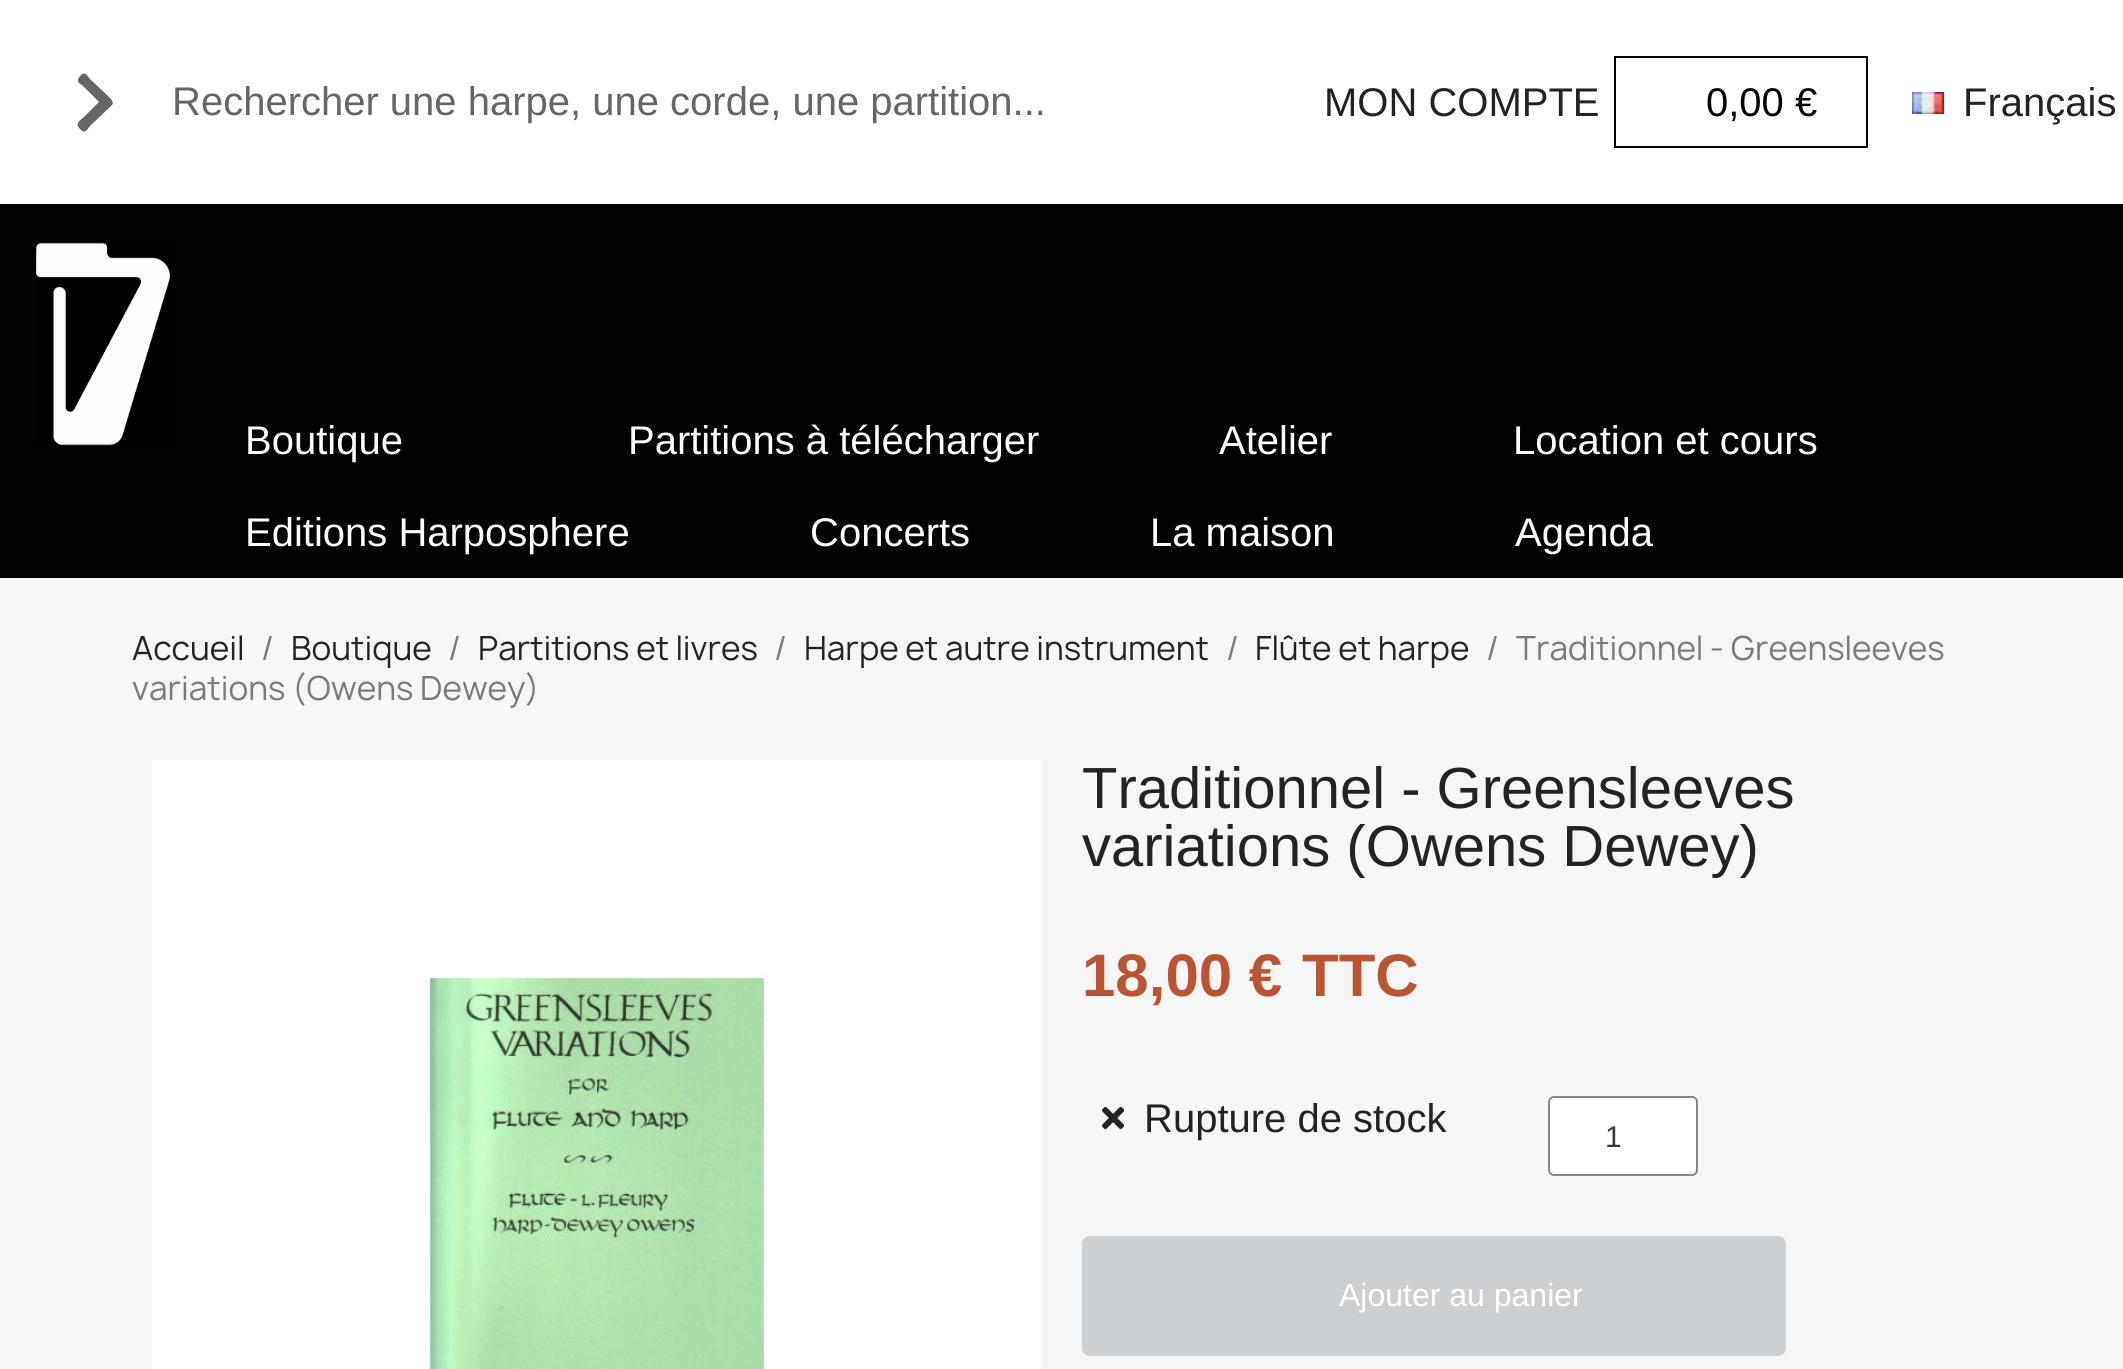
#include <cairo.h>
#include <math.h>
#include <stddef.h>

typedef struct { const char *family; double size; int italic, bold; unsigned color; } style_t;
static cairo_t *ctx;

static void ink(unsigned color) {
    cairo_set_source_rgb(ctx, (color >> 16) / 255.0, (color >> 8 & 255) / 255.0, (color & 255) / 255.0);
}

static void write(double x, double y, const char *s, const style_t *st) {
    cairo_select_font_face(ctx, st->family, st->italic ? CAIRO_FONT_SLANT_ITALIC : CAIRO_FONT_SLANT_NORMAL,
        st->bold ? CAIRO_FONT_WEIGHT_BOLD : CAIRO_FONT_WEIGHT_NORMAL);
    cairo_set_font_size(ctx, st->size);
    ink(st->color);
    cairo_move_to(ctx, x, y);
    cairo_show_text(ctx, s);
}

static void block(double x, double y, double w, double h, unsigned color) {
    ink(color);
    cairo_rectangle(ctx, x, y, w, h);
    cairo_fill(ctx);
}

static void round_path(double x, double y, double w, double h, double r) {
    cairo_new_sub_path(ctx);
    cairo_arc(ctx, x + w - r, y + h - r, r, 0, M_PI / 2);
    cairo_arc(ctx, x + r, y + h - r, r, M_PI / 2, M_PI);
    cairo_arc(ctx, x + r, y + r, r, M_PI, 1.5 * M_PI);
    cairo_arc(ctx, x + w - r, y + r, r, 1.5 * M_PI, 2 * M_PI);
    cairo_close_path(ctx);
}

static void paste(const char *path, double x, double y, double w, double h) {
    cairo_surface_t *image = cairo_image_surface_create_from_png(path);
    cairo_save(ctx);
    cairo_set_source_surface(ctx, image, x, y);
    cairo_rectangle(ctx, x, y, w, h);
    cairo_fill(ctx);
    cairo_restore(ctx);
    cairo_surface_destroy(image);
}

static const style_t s1 = {"Liberation Sans", 40, 0, 0, 0x666666};
static const style_t s2 = {"Liberation Sans", 40, 0, 0, 0x232323};
static const style_t s3 = {"Liberation Sans", 40, 0, 0, 0x000000};
static const style_t s4 = {"Liberation Sans", 40, 0, 0, 0xffffff};
static const style_t s5 = {"Manrope", 32, 0, 0, 0x232323};
static const style_t s6 = {"Manrope", 32, 0, 0, 0x7a7a7a};
static const style_t s7 = {"Liberation Sans", 58, 0, 0, 0x232323};
static const style_t s8 = {"Liberation Sans", 60, 0, 1, 0xba5434};
static const style_t s9 = {"Liberation Sans", 30, 0, 0, 0x373a3c};
static const style_t s10 = {"Liberation Sans", 32, 0, 0, 0xffffff};

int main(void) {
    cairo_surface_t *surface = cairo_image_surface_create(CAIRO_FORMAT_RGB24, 2123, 1369);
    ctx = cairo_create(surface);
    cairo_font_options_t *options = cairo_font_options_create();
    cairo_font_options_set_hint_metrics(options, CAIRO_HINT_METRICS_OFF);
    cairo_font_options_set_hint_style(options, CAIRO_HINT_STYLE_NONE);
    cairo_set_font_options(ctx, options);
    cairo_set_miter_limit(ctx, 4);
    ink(0xf6f6f6);
    cairo_paint(ctx);
    block(0, 0, 2123, 204, 0xffffff);
    ink(0x666666);
    cairo_new_path(ctx);
    cairo_move_to(ctx, 112, 105);
    cairo_line_to(ctx, 90, 126);
    cairo_curve_to(ctx, 86, 131, 85, 134, 80, 129);
    cairo_curve_to(ctx, 74, 123, 80, 121, 85, 116);
    cairo_line_to(ctx, 99, 102);
    cairo_line_to(ctx, 82, 85);
    cairo_curve_to(ctx, 80, 84, 77, 82, 78, 79);
    cairo_line_to(ctx, 80, 76);
    cairo_curve_to(ctx, 85, 71, 86, 74, 90, 79);
    cairo_line_to(ctx, 108, 96);
    cairo_curve_to(ctx, 109, 97, 115, 102, 112, 105);
    cairo_close_path(ctx);
    cairo_fill(ctx);
    write(172, 115, "Rechercher une harpe, une corde, une partition...", &s1);
    write(1324, 116, "MON COMPTE", &s2);
    cairo_rectangle(ctx, 1615, 57, 252, 90);
    ink(0x000000);
    cairo_stroke(ctx);
    write(1706, 116, "0,00 €", &s3);
    paste("pic1.png", 1912, 92, 32, 22);
    write(1963, 116, "Français", &s2);
    block(0, 204, 2123, 374, 0x020202);
    paste("pic2.png", 35, 242, 136, 204);
    write(245, 454, "Boutique", &s4);
    write(628, 454, "Partitions à télécharger", &s4);
    write(1219, 454, "Atelier", &s4);
    write(1513, 454, "Location et cours", &s4);
    write(245, 546, "Editions Harposphere", &s4);
    write(810, 546, "Concerts", &s4);
    write(1150, 546, "La maison", &s4);
    write(1515, 546, "Agenda", &s4);
    write(132, 660, "Accueil", &s5);
    write(261, 660, "/", &s6);
    write(291, 660, "Boutique", &s5);
    write(448, 660, "/", &s6);
    write(478, 660, "Partitions et livres", &s5);
    write(774, 660, "/", &s6);
    write(804, 660, "Harpe et autre instrument", &s5);
    write(1226, 660, "/", &s6);
    write(1255, 660, "Flûte et harpe", &s5);
    write(1486, 660, "/", &s6);
    write(1516, 660, "Traditionnel - Greensleeves", &s6);
    write(132, 700, "variations (Owens Dewey)", &s6);
    paste("pic3.png", 152, 760, 890, 609);
    write(1082, 808, "Traditionnel - Greensleeves", &s7);
    write(1082, 866, "variations (Owens Dewey)", &s7);
    write(1082, 996, "18,00 €", &s8);
    write(1302, 996, "TTC", &s8);
    paste("pic4.png", 1102, 1107, 22, 22);
    write(1144, 1132, "Rupture de stock", &s2);
    ink(0xffffff);
    round_path(1549, 1097, 148, 78, 5);
    cairo_fill_preserve(ctx);
    ink(0x818a91);
    cairo_stroke(ctx);
    write(1605, 1147, "1", &s9);
    ink(0xcdd0d3);
    round_path(1082, 1236, 704, 120, 8);
    cairo_fill(ctx);
    write(1339, 1306, "Ajouter au panier", &s10);
    cairo_surface_write_to_png(surface, "screenshot.png");
    cairo_font_options_destroy(options);
    cairo_destroy(ctx);
    cairo_surface_destroy(surface);
    return 0;
}
